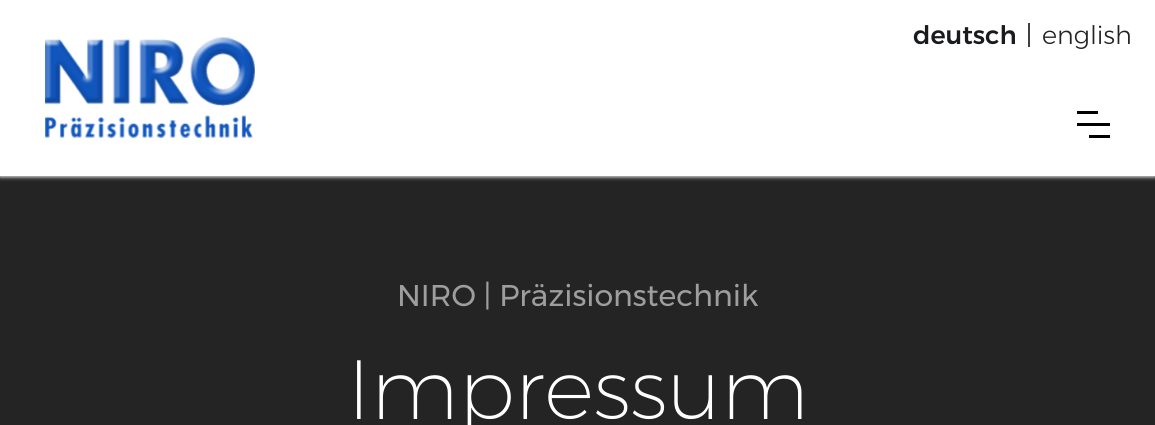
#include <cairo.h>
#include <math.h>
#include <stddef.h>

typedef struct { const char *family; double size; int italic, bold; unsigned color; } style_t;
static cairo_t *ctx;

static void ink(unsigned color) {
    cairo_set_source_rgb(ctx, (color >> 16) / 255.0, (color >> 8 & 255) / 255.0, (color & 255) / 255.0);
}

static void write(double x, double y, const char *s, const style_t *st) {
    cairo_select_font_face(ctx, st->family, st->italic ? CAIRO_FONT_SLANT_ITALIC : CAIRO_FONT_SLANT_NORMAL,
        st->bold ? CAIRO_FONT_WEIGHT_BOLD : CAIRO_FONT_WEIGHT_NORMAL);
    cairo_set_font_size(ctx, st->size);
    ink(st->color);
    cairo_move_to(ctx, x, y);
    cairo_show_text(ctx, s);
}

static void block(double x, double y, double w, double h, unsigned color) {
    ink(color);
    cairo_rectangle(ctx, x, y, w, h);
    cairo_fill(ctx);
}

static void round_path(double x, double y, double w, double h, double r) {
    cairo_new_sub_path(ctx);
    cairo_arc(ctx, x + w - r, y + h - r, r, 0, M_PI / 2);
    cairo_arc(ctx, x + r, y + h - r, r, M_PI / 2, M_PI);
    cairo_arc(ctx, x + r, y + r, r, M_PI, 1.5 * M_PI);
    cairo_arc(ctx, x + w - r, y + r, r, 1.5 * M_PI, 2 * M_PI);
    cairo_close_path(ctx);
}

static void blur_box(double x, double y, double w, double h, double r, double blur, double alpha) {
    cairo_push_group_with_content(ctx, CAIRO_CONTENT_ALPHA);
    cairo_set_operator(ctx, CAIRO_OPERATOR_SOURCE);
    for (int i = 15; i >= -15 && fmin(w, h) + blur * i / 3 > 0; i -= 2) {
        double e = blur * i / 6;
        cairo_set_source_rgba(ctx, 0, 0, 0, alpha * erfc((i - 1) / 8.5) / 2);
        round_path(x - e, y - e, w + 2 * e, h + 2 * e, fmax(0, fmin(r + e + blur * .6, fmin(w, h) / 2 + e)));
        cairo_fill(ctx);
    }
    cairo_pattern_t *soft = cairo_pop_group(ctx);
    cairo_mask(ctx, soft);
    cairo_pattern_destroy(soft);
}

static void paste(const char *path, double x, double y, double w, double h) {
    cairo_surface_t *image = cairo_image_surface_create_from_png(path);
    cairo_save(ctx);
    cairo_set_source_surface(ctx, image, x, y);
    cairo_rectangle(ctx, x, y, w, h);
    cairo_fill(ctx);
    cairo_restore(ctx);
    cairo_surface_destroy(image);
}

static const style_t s1 = {"Montserrat Medium", 25.5, 0, 0, 0x1a1b1f};
static const style_t s2 = {"Montserrat Light", 25.5, 0, 0, 0x222222};
static const style_t s3 = {"Montserrat", 30, 0, 0, 0x9e9e9e};
static const style_t s4 = {"Montserrat ExtraLight", 84, 0, 0, 0xffffff};

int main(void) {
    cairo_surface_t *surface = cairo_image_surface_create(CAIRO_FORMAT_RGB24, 1155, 425);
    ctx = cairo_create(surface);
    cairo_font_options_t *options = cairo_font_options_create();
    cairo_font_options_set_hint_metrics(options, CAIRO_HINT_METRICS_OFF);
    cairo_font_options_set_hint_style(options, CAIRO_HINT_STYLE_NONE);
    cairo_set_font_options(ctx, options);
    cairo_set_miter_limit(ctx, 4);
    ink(0x242424);
    cairo_paint(ctx);
    ink(0xf5f7fa);
    blur_box(0, 2, 1155, 175, 0, 2, 1);
    block(0, 0, 1155, 176, 0xffffff);
    write(913, 44, "deutsch", &s1);
    block(1028, 23, 2, 24, 0x404040);
    write(1042, 44, "english", &s2);
    paste("pic1.png", 45, 37, 210, 101);
    paste("pic2.png", 1077, 111, 33, 27);
    write(397, 306, "NIRO | Präzisionstechnik", &s3);
    write(347, 419, "Impressum", &s4);
    cairo_surface_write_to_png(surface, "screenshot.png");
    cairo_font_options_destroy(options);
    cairo_destroy(ctx);
    cairo_surface_destroy(surface);
    return 0;
}
